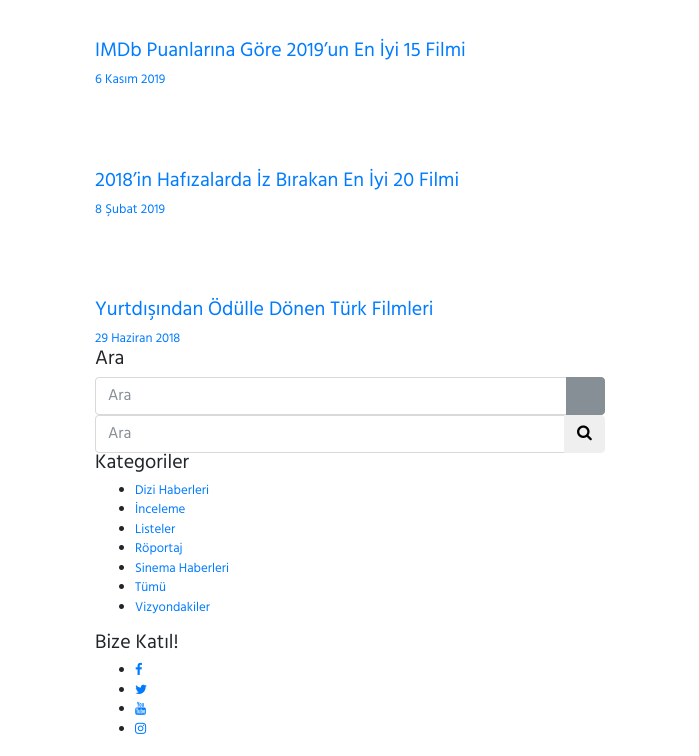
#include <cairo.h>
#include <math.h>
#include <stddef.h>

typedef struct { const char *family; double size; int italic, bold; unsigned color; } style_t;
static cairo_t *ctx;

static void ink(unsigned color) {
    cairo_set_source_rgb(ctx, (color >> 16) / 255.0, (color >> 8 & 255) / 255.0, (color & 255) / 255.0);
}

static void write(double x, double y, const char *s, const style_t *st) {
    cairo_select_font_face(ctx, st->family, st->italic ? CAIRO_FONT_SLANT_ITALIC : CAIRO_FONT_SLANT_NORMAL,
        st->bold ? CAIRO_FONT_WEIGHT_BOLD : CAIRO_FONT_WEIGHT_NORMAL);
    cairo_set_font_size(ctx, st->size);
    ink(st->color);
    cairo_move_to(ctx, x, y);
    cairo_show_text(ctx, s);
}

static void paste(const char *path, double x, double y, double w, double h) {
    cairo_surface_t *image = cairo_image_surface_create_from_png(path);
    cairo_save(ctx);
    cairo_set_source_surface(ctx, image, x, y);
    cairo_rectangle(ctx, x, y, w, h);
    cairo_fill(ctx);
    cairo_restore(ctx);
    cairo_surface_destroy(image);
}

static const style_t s1 = {"Hind", 20, 0, 0, 0x007bff};
static const style_t s2 = {"Hind", 13, 0, 0, 0x007bff};
static const style_t s3 = {"Hind", 20, 0, 0, 0x212529};
static const style_t s4 = {"Hind", 16, 0, 0, 0x868e96};

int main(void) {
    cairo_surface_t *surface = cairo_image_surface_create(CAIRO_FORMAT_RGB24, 699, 756);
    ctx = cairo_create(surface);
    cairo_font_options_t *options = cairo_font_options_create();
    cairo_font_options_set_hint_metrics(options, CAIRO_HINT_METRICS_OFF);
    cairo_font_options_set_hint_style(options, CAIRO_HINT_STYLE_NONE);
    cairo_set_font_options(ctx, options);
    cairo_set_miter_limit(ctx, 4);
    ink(0xffffff);
    cairo_paint(ctx);
    write(95, 56, "IMDb Puanlarına Göre 2019’un En İyi 15 Filmi", &s1);
    write(95, 83, "6 Kasım 2019", &s2);
    write(95, 186, "2018’in Hafızalarda İz Bırakan En İyi 20 Filmi", &s1);
    write(95, 213, "8 Şubat 2019", &s2);
    write(95, 315, "Yurtdışından Ödülle Dönen Türk Filmleri", &s1);
    write(95, 342, "29 Haziran 2018", &s2);
    write(95, 364, "Ara", &s3);
    cairo_new_path(ctx);
    cairo_move_to(ctx, 99, 377.5);
    cairo_line_to(ctx, 566.5, 377.5);
    cairo_line_to(ctx, 566.5, 414.5);
    cairo_line_to(ctx, 99, 414.5);
    cairo_curve_to(ctx, 97, 414.5, 95.5, 413, 95.5, 411);
    cairo_line_to(ctx, 95.5, 381);
    cairo_curve_to(ctx, 95.5, 379, 97, 377.5, 99, 377.5);
    cairo_close_path(ctx);
    ink(0xd9d9d9);
    cairo_set_line_width(ctx, 1);
    cairo_stroke(ctx);
    write(108, 400, "Ara", &s4);
    cairo_new_path(ctx);
    cairo_move_to(ctx, 566.5, 377.5);
    cairo_line_to(ctx, 601, 377.5);
    cairo_curve_to(ctx, 603, 377.5, 604.5, 379, 604.5, 381);
    cairo_line_to(ctx, 604.5, 411);
    cairo_curve_to(ctx, 604.5, 413, 603, 414.5, 601, 414.5);
    cairo_line_to(ctx, 566.5, 414.5);
    cairo_close_path(ctx);
    cairo_fill_preserve(ctx);
    cairo_stroke(ctx);
    cairo_new_path(ctx);
    cairo_move_to(ctx, 99, 415.5);
    cairo_line_to(ctx, 564.5, 415.5);
    cairo_line_to(ctx, 564.5, 452.5);
    cairo_line_to(ctx, 99, 452.5);
    cairo_curve_to(ctx, 97, 452.5, 95.5, 451, 95.5, 449);
    cairo_line_to(ctx, 95.5, 419);
    cairo_curve_to(ctx, 95.5, 417, 97, 415.5, 99, 415.5);
    cairo_close_path(ctx);
    ink(0xd9d9d9);
    cairo_stroke(ctx);
    write(108, 438, "Ara", &s4);
    ink(0xefefef);
    cairo_new_path(ctx);
    cairo_move_to(ctx, 564, 415);
    cairo_line_to(ctx, 601, 415);
    cairo_curve_to(ctx, 603, 415, 605, 417, 605, 419);
    cairo_line_to(ctx, 605, 449);
    cairo_curve_to(ctx, 605, 451, 603, 453, 601, 453);
    cairo_line_to(ctx, 564, 453);
    cairo_close_path(ctx);
    cairo_fill(ctx);
    paste("pic1.png", 577, 425, 15, 16);
    write(95, 468, "Kategoriler", &s3);
    cairo_new_path(ctx);
    cairo_arc(ctx, 121.5, 489.5, 2.5, 0, 2 * M_PI);
    cairo_fill(ctx);
    write(135, 494, "Dizi Haberleri", &s2);
    ink(0x212529);
    cairo_new_path(ctx);
    cairo_arc(ctx, 121.5, 508.5, 2.5, 0, 2 * M_PI);
    cairo_fill(ctx);
    write(135, 513, "İnceleme", &s2);
    ink(0x212529);
    cairo_new_path(ctx);
    cairo_arc(ctx, 121.5, 528.5, 2.5, 0, 2 * M_PI);
    cairo_fill(ctx);
    write(135, 533, "Listeler", &s2);
    ink(0x212529);
    cairo_new_path(ctx);
    cairo_arc(ctx, 121.5, 547.5, 2.5, 0, 2 * M_PI);
    cairo_fill(ctx);
    write(135, 552, "Röportaj", &s2);
    ink(0x212529);
    cairo_new_path(ctx);
    cairo_arc(ctx, 121.5, 567.5, 2.5, 0, 2 * M_PI);
    cairo_fill(ctx);
    write(135, 572, "Sinema Haberleri", &s2);
    ink(0x212529);
    cairo_new_path(ctx);
    cairo_arc(ctx, 121.5, 586.5, 2.5, 0, 2 * M_PI);
    cairo_fill(ctx);
    write(135, 591, "Tümü", &s2);
    ink(0x212529);
    cairo_new_path(ctx);
    cairo_arc(ctx, 121.5, 606.5, 2.5, 0, 2 * M_PI);
    cairo_fill(ctx);
    write(135, 611, "Vizyondakiler", &s2);
    write(95, 648, "Bize Katıl!", &s3);
    cairo_new_path(ctx);
    cairo_arc(ctx, 121.5, 669.5, 2.5, 0, 2 * M_PI);
    cairo_fill(ctx);
    paste("pic2.png", 135, 662, 7, 13);
    cairo_arc(ctx, 121.5, 689.5, 2.5, 0, 2 * M_PI);
    cairo_fill(ctx);
    paste("pic3.png", 135, 684, 12, 10);
    cairo_arc(ctx, 121.5, 708.5, 2.5, 0, 2 * M_PI);
    cairo_fill(ctx);
    paste("pic4.png", 135, 701, 11, 14);
    cairo_arc(ctx, 121.5, 728.5, 2.5, 0, 2 * M_PI);
    cairo_fill(ctx);
    paste("pic5.png", 135, 722, 12, 12);
    cairo_surface_write_to_png(surface, "screenshot.png");
    cairo_font_options_destroy(options);
    cairo_destroy(ctx);
    cairo_surface_destroy(surface);
    return 0;
}
